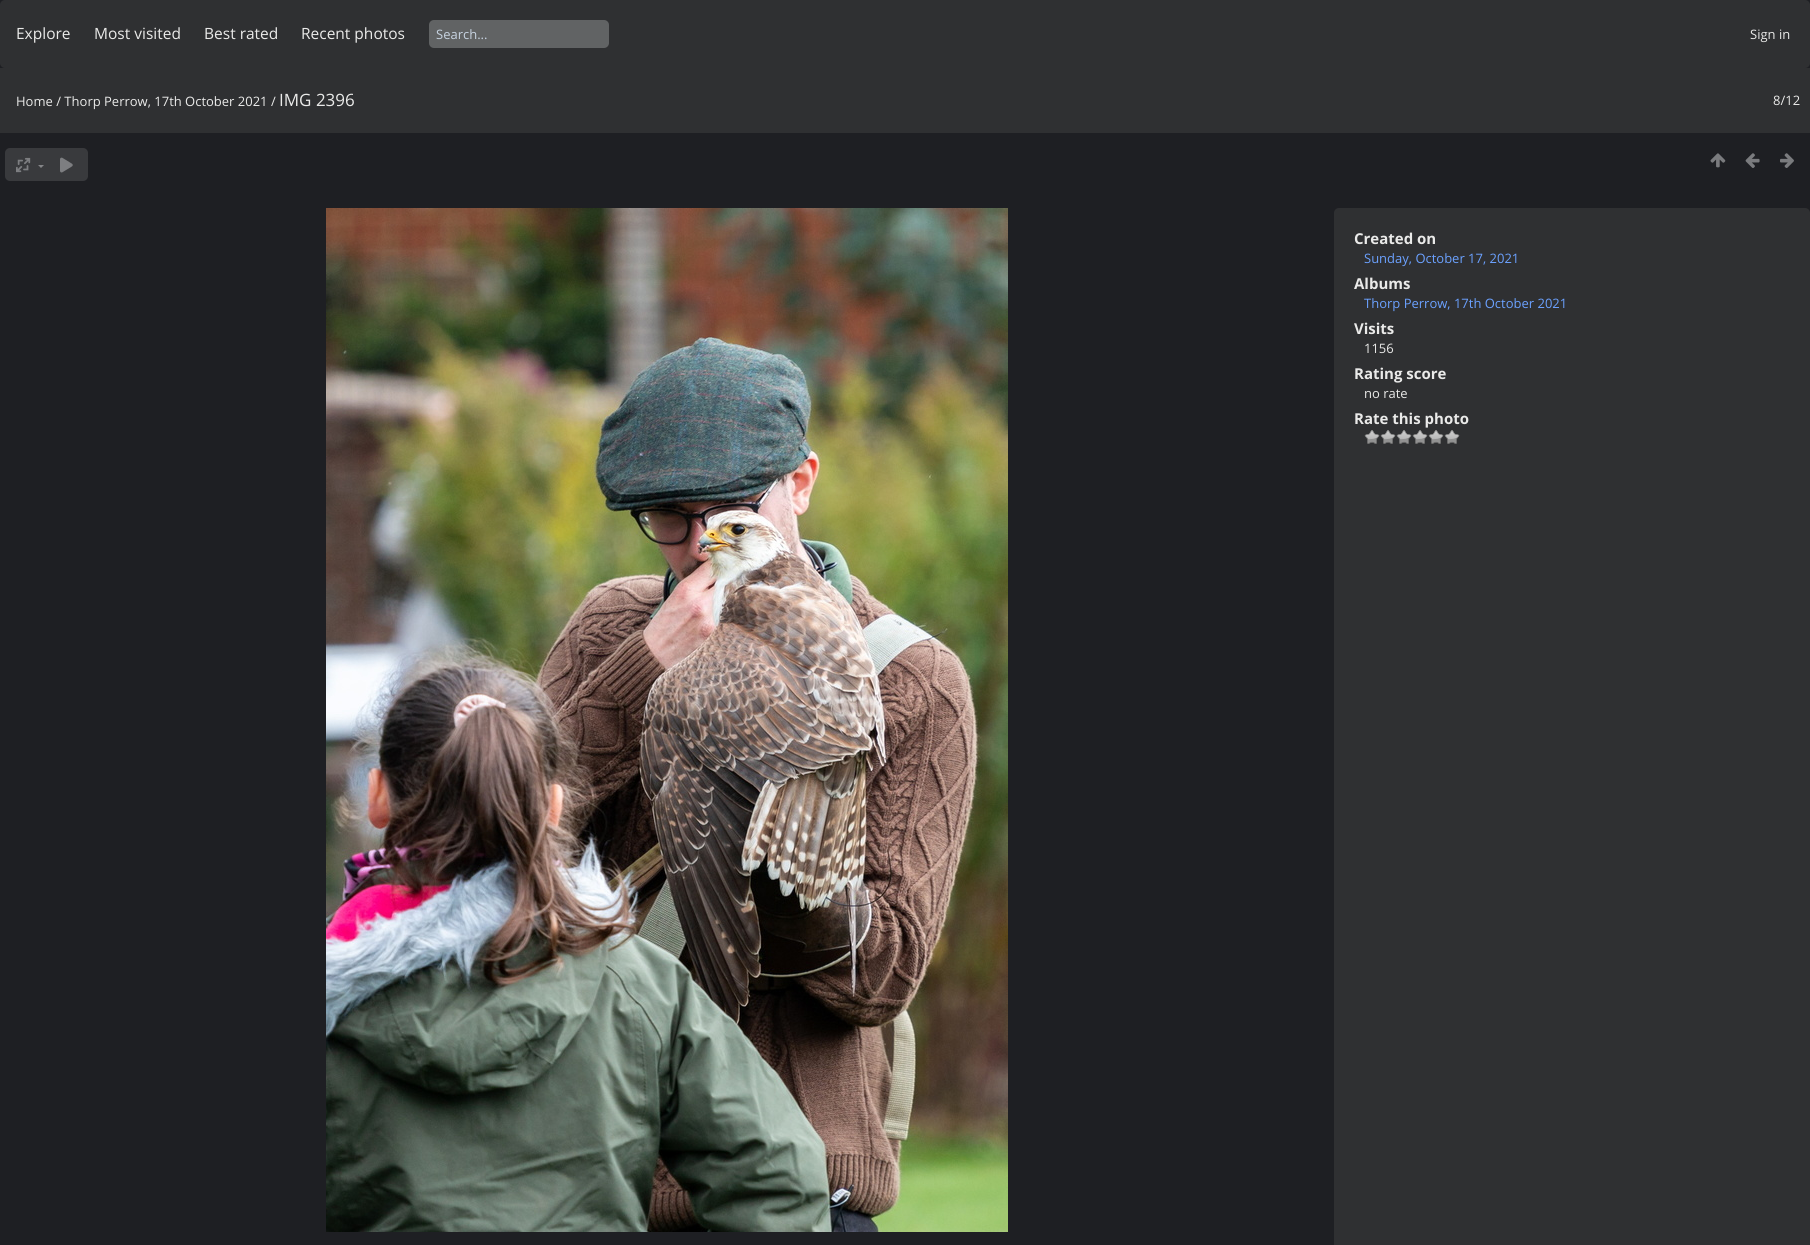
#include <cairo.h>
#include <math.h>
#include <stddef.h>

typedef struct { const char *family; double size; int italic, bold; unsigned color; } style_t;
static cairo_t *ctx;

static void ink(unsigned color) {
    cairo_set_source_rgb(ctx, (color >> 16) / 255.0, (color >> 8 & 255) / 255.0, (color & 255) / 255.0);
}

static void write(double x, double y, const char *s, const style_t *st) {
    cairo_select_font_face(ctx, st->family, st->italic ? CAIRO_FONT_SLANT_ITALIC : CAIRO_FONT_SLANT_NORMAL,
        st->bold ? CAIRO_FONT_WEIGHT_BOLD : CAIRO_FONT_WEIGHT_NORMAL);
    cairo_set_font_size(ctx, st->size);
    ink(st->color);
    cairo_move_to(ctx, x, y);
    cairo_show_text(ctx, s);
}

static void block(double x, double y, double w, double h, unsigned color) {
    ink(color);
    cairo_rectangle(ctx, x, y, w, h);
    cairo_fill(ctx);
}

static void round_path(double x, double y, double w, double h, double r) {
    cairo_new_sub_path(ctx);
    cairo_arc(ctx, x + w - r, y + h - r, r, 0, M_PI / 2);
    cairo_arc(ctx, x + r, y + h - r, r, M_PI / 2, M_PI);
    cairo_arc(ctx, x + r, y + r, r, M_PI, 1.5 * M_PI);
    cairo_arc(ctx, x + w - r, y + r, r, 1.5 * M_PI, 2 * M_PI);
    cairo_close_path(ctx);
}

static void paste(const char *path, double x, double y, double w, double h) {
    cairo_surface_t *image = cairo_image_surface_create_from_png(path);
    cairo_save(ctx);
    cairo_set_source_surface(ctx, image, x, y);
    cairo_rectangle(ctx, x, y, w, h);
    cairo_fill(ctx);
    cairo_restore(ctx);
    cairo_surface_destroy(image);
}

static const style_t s1 = {"Open Sans", 15.5, 0, 0, 0xeaeae9};
static const style_t s2 = {"Open Sans", 13, 0, 0, 0xc7d3e1};
static const style_t s3 = {"Open Sans", 13, 0, 0, 0xeaeae9};
static const style_t s4 = {"Open Sans", 17, 0, 0, 0xeaeae9};
static const style_t s5 = {"Open Sans", 15, 0, 1, 0xeaeae9};
static const style_t s6 = {"Open Sans", 13, 0, 0, 0x6ba1ff};

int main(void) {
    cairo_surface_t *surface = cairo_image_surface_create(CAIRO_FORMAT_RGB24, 1810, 1245);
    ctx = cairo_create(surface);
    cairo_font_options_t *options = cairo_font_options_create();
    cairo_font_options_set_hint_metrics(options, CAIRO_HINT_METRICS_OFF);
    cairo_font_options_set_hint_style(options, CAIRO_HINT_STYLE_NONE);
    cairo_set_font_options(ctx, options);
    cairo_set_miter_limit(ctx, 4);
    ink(0x1e1f23);
    cairo_paint(ctx);
    ink(0x2f3032);
    round_path(0, 0, 1810, 68, 5);
    cairo_fill(ctx);
    write(16, 39, "Explore", &s1);
    write(94, 39, "Most visited", &s1);
    write(204, 39, "Best rated", &s1);
    write(301, 39, "Recent photos", &s1);
    ink(0x616364);
    round_path(429, 20, 180, 28, 5);
    cairo_fill(ctx);
    write(436, 39, "Search...", &s2);
    write(1750, 39, "Sign in", &s3);
    block(0, 68, 1810, 65, 0x2f3032);
    write(16, 106, "Home / Thorp Perrow, 17th October 2021 /", &s3);
    write(279, 106, "IMG 2396", &s4);
    write(1773, 105, "8/12", &s3);
    ink(0x393a3d);
    round_path(5, 148, 83, 33, 5);
    cairo_fill(ctx);
    paste("pic1.png", 16, 157, 15, 16);
    ink(0x848588);
    cairo_new_path(ctx);
    cairo_move_to(ctx, 38, 165);
    cairo_line_to(ctx, 44, 165);
    cairo_line_to(ctx, 41, 168);
    cairo_close_path(ctx);
    cairo_fill(ctx);
    paste("pic2.png", 60, 157, 13, 16);
    paste("pic3.png", 1710, 153, 16, 15);
    paste("pic4.png", 1745, 153, 15, 15);
    paste("pic5.png", 1780, 153, 14, 15);
    paste("pic6.png", 326, 208, 682, 1024);
    ink(0x2f3032);
    round_path(1334, 208, 476, 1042, 5);
    cairo_fill(ctx);
    write(1354, 244, "Created on", &s5);
    write(1364, 263, "Sunday, October 17, 2021", &s6);
    write(1354, 289, "Albums", &s5);
    write(1364, 308, "Thorp Perrow, 17th October 2021", &s6);
    write(1354, 334, "Visits", &s5);
    write(1364, 353, "1156", &s3);
    write(1354, 379, "Rating score", &s5);
    write(1364, 398, "no rate", &s3);
    write(1354, 424, "Rate this photo", &s5);
    paste("pic7.png", 1364, 430, 16, 14);
    paste("pic7.png", 1380, 430, 16, 14);
    paste("pic7.png", 1396, 430, 16, 14);
    paste("pic7.png", 1412, 430, 16, 14);
    paste("pic7.png", 1428, 430, 16, 14);
    paste("pic7.png", 1444, 430, 16, 14);
    cairo_surface_write_to_png(surface, "screenshot.png");
    cairo_font_options_destroy(options);
    cairo_destroy(ctx);
    cairo_surface_destroy(surface);
    return 0;
}
